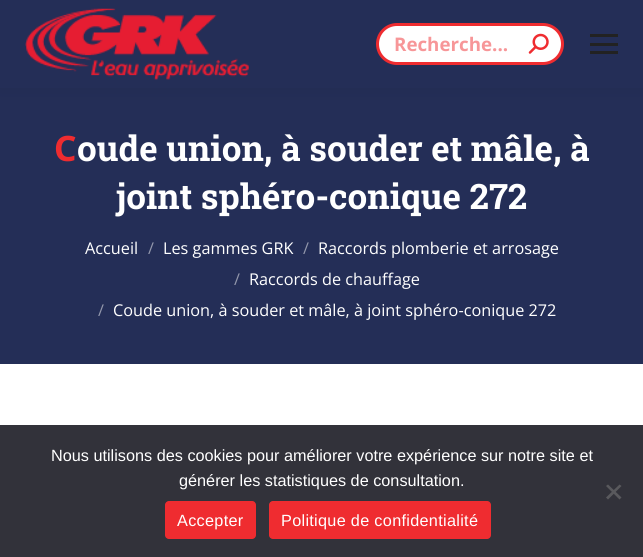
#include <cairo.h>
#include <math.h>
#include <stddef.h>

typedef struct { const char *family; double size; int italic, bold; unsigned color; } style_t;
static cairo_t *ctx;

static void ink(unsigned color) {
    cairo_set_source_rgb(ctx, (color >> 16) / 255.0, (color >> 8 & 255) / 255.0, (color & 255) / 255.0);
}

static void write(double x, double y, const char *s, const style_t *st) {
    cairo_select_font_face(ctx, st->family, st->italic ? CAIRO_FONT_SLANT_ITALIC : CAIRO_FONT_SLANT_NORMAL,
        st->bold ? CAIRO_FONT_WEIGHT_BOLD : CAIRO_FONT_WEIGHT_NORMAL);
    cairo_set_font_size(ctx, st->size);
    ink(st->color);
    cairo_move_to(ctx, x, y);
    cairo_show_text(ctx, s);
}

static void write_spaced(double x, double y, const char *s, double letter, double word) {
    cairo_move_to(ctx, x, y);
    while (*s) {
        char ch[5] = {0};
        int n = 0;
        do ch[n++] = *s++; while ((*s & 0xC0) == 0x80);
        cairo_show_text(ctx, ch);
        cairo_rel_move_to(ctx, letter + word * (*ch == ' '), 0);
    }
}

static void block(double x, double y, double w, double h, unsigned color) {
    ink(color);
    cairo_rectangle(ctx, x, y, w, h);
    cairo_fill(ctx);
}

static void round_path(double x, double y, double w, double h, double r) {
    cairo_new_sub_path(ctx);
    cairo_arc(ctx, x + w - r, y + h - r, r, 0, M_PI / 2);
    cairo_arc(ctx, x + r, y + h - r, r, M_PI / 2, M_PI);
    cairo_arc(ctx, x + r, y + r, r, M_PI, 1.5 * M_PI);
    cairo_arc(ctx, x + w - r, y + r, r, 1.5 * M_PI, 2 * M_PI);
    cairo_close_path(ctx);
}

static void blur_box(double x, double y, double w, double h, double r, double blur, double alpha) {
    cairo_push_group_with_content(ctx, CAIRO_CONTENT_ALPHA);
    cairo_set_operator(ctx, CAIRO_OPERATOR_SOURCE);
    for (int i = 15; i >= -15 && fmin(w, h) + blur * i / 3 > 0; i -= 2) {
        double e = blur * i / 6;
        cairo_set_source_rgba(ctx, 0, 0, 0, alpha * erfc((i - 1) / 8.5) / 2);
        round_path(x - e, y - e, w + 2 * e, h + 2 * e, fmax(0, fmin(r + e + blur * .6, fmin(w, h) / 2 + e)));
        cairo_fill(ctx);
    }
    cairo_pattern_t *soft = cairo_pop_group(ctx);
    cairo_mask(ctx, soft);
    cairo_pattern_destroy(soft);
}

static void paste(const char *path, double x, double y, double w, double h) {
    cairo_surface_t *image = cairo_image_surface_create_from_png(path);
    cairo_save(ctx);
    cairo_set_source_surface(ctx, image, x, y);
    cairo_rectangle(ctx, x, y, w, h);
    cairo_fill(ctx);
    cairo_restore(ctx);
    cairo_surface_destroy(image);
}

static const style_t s1 = {"Open Sans", 18.75, 0, 1, 0xf79698};
static const style_t s2 = {"Noto Sans", 35, 0, 1, 0xef2c30};
static const style_t s3 = {"Roboto Slab", 35, 0, 1, 0xffffff};
static const style_t s4 = {"Open Sans", 16.25, 0, 0, 0xffffff};
static const style_t s5 = {"Open Sans", 16.25, 0, 0, 0x9297ab};
static const style_t s6 = {"Liberation Sans", 16.25, 0, 0, 0xffffff};

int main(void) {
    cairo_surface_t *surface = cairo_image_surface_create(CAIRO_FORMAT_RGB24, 643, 557);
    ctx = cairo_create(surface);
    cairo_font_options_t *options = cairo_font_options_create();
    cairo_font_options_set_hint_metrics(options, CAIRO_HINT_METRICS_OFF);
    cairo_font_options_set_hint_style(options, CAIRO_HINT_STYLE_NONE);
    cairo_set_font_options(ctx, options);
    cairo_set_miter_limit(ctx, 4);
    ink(0xffffff);
    cairo_paint(ctx);
    block(0, 88, 643, 276, 0x242e57);
    ink(0x000000);
    blur_box(-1, -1, 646, 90, 0, 9.5, 0.07);
    block(0, 0, 643, 88, 0x242e57);
    paste("pic1.png", 25, 8, 224, 72);
    ink(0xffffff);
    round_path(377.5, 24.5, 185, 39, 19.5);
    cairo_fill_preserve(ctx);
    ink(0xef2c30);
    cairo_set_line_width(ctx, 3);
    cairo_stroke(ctx);
    write(394, 51, "Recherche...", &s1);
    paste("pic2.png", 528, 33, 21, 21);
    block(590, 34, 28, 3, 0x222222);
    block(590, 43, 28, 3, 0x222222);
    block(590, 51, 28, 3, 0x222222);
    write(54, 161, "C", &s2);
    write(77, 161, "oude union, à souder et mâle, à", &s3);
    write(116, 209, "joint sphéro-conique 272", &s3);
    write(85, 254, "Accueil", &s4);
    write(148, 254, "/", &s5);
    write(163, 254, "Les gammes GRK", &s4);
    write(303, 254, "/", &s5);
    write(318, 254, "Raccords plomberie et arrosage", &s4);
    write(234, 285, "/", &s5);
    write(249, 285, "Raccords de chauffage", &s4);
    write(98, 316, "/", &s5);
    write(113, 316, "Coude union, à souder et mâle, à joint sphéro-conique 272", &s4);
    block(0, 425, 643, 132, 0x32323a);
    write(51, 461, "Nous utilisons des cookies pour améliorer votre expérience sur notre site et", &s6);
    write(179, 486, "générer les statistiques de consultation.", &s6);
    ink(0x59595d);
    cairo_new_path(ctx);
    cairo_move_to(ctx, 619.5, 484.5);
    cairo_line_to(ctx, 621.5, 486);
    cairo_line_to(ctx, 608, 499.5);
    cairo_line_to(ctx, 606, 497.5);
    cairo_close_path(ctx);
    cairo_fill(ctx);
    cairo_new_path(ctx);
    cairo_move_to(ctx, 606, 486);
    cairo_line_to(ctx, 608, 484.5);
    cairo_line_to(ctx, 621.5, 497.5);
    cairo_line_to(ctx, 619.5, 499.5);
    cairo_close_path(ctx);
    cairo_fill(ctx);
    ink(0xef2c30);
    round_path(165, 501, 91, 38, 4);
    cairo_fill(ctx);
    ink(0xffffff);
    write_spaced(177, 526, "Accepter", 0.3, 0);
    ink(0xef2c30);
    round_path(269, 501, 222, 38, 4);
    cairo_fill(ctx);
    ink(0xffffff);
    write_spaced(281, 526, "Politique de confidentialité", 0.3, 0);
    cairo_surface_write_to_png(surface, "screenshot.png");
    cairo_font_options_destroy(options);
    cairo_destroy(ctx);
    cairo_surface_destroy(surface);
    return 0;
}
